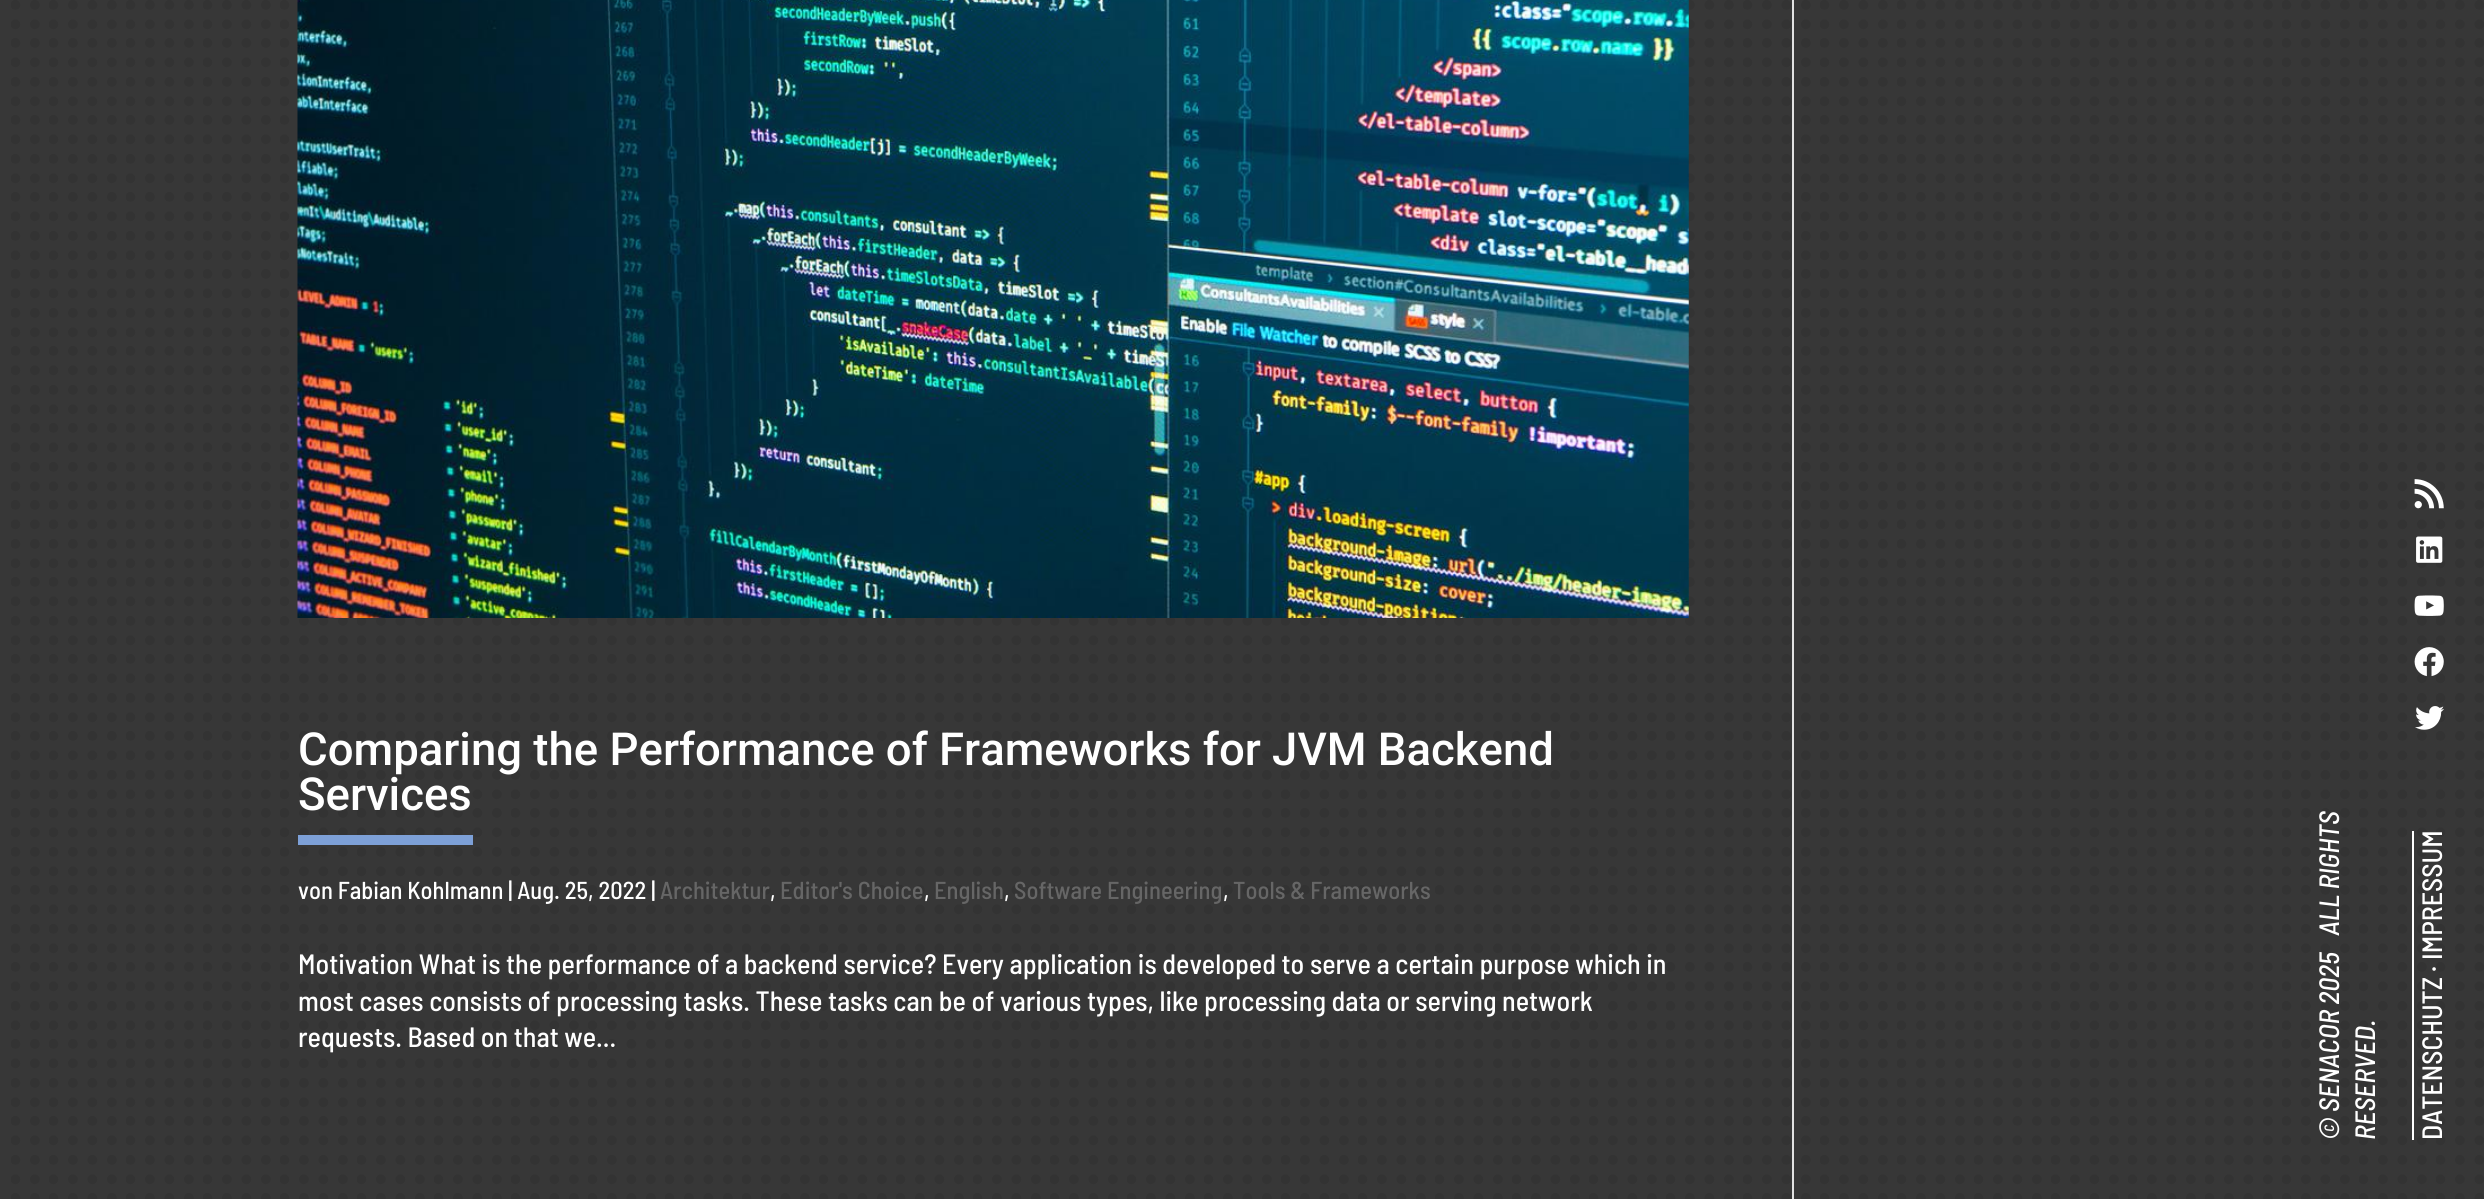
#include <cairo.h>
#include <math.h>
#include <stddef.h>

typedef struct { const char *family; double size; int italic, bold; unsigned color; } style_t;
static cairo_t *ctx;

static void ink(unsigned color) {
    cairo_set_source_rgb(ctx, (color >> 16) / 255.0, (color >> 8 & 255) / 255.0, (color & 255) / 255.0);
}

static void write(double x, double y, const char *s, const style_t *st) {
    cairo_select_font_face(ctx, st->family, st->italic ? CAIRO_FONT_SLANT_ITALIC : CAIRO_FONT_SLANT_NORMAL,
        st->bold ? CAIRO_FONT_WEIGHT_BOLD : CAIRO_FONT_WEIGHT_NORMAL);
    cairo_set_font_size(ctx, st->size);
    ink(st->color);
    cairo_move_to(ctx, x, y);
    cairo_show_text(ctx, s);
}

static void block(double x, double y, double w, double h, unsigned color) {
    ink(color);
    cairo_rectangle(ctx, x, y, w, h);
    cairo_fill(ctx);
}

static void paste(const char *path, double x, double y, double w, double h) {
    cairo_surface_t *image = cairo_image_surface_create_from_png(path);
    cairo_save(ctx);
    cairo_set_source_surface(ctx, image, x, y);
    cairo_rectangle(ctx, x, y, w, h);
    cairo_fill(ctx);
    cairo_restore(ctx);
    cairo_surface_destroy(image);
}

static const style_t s1 = {"Roboto Medium", 45.5, 0, 0, 0xffffff};
static const style_t s2 = {"Barlow Semi Condensed Medium", 24.5, 0, 0, 0xffffff};
static const style_t s3 = {"Barlow Semi Condensed Medium", 24.5, 0, 0, 0x666666};
static const style_t s4 = {"Barlow Semi Condensed Medium", 28, 0, 0, 0xffffff};
static const style_t s5 = {"Barlow Semi Condensed Medium", 28, 1, 0, 0xffffff};

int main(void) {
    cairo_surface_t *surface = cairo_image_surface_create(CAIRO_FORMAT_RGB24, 2484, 1199);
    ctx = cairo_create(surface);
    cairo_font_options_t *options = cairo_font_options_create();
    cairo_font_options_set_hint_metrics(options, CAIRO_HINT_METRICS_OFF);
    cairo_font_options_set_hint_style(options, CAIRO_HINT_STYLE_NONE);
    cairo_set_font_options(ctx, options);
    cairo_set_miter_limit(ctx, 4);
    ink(0x373737);
    cairo_paint(ctx);
    paste("pic1.png", 11, 0, 2473, 1199);
    paste("pic2.png", 297, 0, 1392, 618);
    write(298, 765, "Comparing the Performance of Frameworks for JVM Backend", &s1);
    write(298, 810, "Services", &s1);
    block(298, 835, 175, 10, 0x7da0d7);
    write(298, 899, "von Fabian Kohlmann | Aug. 25, 2022 |", &s2);
    write(660, 899, "Architektur", &s3);
    write(770, 899, ",", &s2);
    write(780, 899, "Editor's Choice", &s3);
    write(924, 899, ",", &s2);
    write(934, 899, "English", &s3);
    write(1004, 899, ",", &s2);
    write(1014, 899, "Software Engineering", &s3);
    write(1223, 899, ",", &s2);
    write(1233, 899, "Tools & Frameworks", &s3);
    write(298, 974, "Motivation What is the performance of a backend service? Every application is developed to serve a certain purpose which in", &s4);
    write(298, 1011, "most cases consists of processing tasks. These tasks can be of various types, like processing data or serving network", &s4);
    write(298, 1047, "requests. Based on that we...", &s4);
    block(1792, 0, 2, 1199, 0xe2e2e2);
    paste("pic3.png", 2414, 479, 30, 30);
    paste("pic4.png", 2416, 536, 27, 27);
    paste("pic5.png", 2414, 595, 30, 21);
    paste("pic6.png", 2414, 647, 30, 30);
    paste("pic7.png", 2415, 706, 29, 24);
    cairo_save(ctx);
    cairo_translate(ctx, 2339, 1140);
    cairo_rotate(ctx, -90 * M_PI / 180);
    write(0, 0, "© SENACOR 2025   ALL RIGHTS", &s5);
    cairo_restore(ctx);
    cairo_save(ctx);
    cairo_translate(ctx, 2375, 1140);
    cairo_rotate(ctx, -90 * M_PI / 180);
    write(0, 0, "RESERVED.", &s5);
    cairo_restore(ctx);
    block(2412, 831, 2, 309, 0xffffff);
    cairo_save(ctx);
    cairo_translate(ctx, 2442, 960);
    cairo_rotate(ctx, -90 * M_PI / 180);
    write(0, 0, "IMPRESSUM", &s4);
    cairo_restore(ctx);
    cairo_save(ctx);
    cairo_translate(ctx, 2442, 972);
    cairo_rotate(ctx, -90 * M_PI / 180);
    write(0, 0, "·", &s4);
    cairo_restore(ctx);
    cairo_save(ctx);
    cairo_translate(ctx, 2442, 1140);
    cairo_rotate(ctx, -90 * M_PI / 180);
    write(0, 0, "DATENSCHUTZ", &s4);
    cairo_restore(ctx);
    cairo_surface_write_to_png(surface, "screenshot.png");
    cairo_font_options_destroy(options);
    cairo_destroy(ctx);
    cairo_surface_destroy(surface);
    return 0;
}
